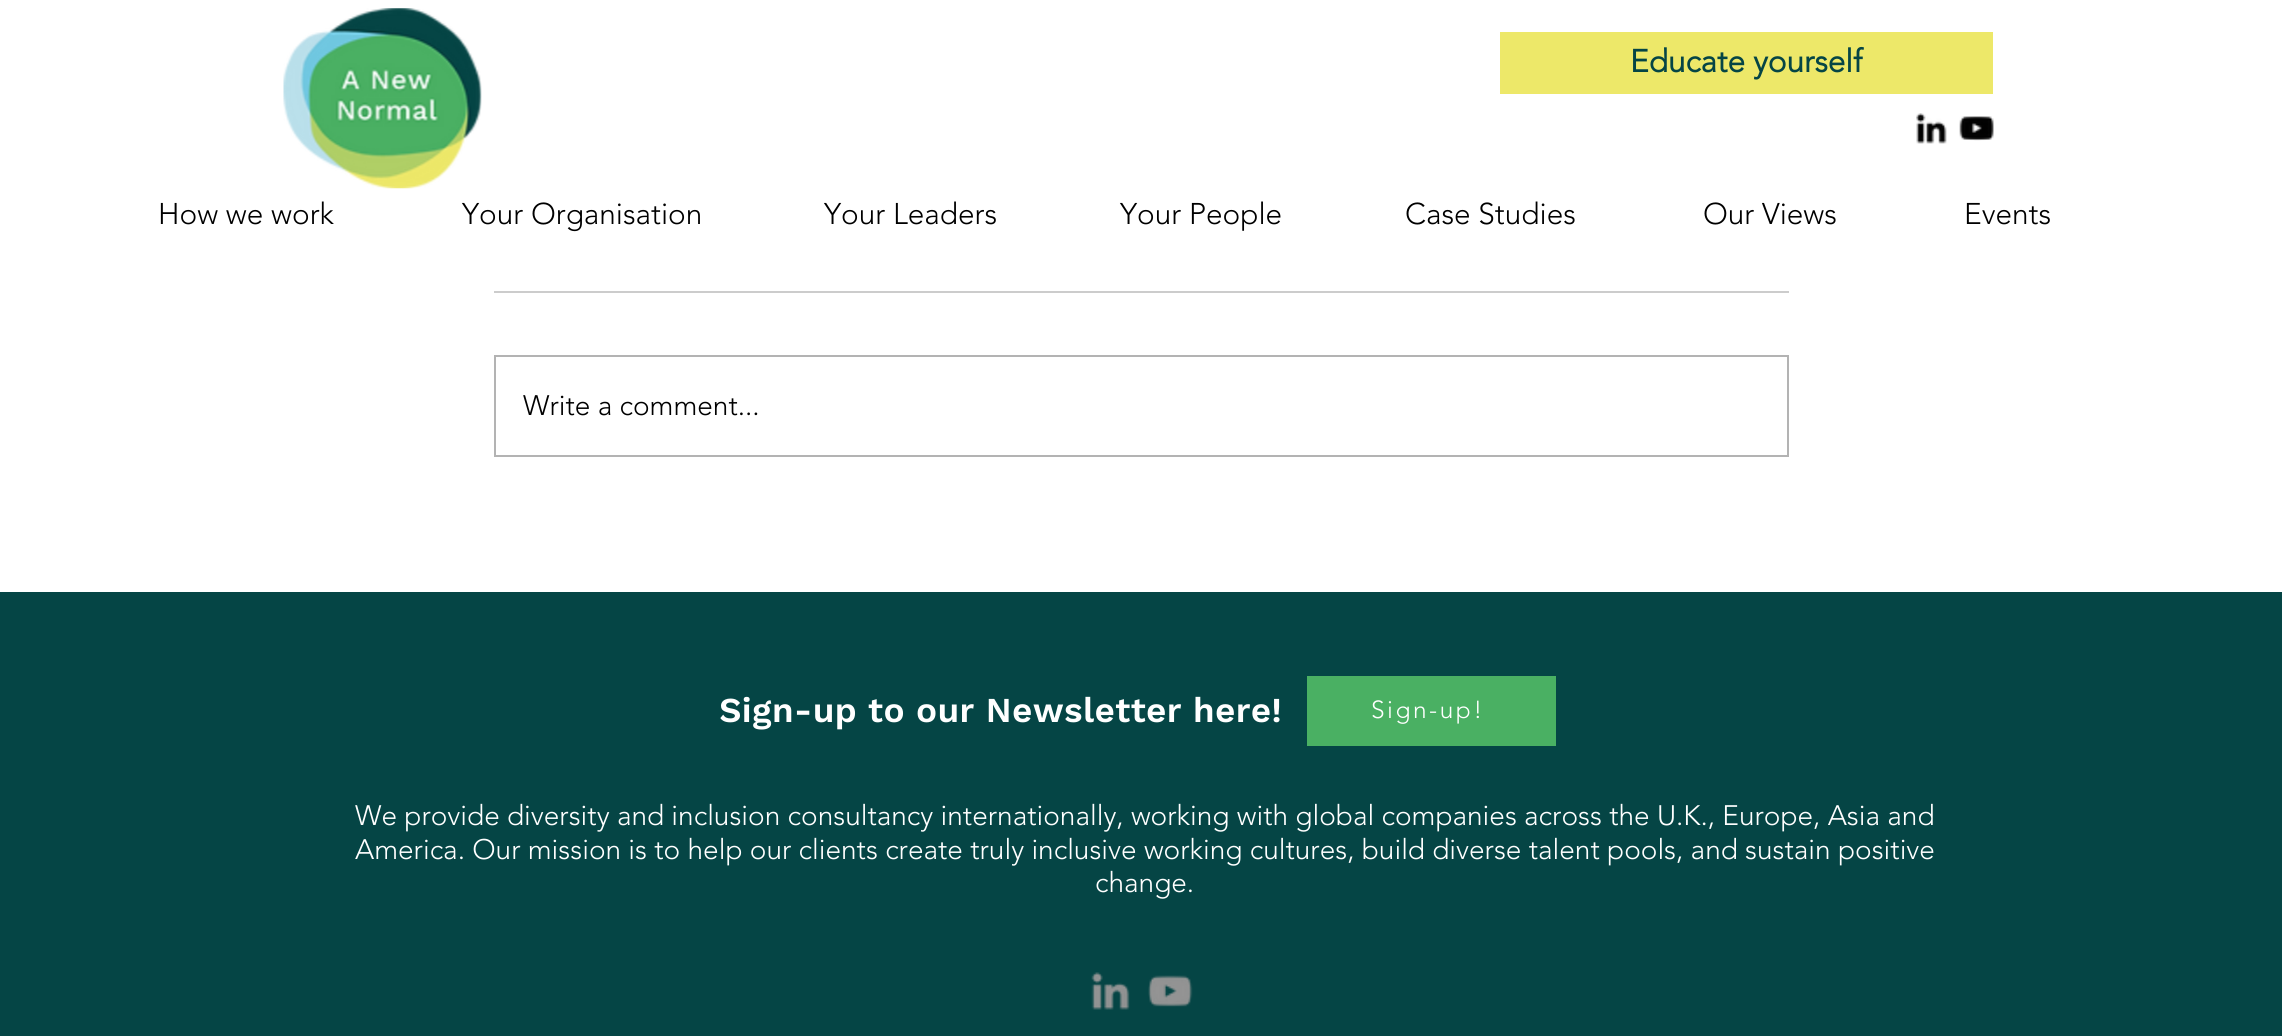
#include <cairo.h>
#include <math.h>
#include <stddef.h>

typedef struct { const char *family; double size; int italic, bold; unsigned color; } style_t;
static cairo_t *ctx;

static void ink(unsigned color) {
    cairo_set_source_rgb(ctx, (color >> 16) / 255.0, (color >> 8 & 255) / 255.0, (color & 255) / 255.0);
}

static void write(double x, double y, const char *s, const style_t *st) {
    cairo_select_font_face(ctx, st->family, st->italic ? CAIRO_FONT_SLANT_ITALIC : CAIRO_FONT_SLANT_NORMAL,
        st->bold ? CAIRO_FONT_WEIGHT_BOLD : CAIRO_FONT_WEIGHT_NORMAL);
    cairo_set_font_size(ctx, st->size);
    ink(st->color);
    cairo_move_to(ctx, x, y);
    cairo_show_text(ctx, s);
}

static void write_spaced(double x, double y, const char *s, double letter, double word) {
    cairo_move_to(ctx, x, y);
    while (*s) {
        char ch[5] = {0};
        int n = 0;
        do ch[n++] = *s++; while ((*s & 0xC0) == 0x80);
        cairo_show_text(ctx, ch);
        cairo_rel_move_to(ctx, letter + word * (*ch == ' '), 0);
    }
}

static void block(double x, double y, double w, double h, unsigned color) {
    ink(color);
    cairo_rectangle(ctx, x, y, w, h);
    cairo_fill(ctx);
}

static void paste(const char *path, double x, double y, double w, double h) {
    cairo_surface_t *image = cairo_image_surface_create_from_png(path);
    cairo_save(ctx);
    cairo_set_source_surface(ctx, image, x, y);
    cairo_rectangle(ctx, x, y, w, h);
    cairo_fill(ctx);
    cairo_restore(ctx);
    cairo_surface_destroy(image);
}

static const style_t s1 = {"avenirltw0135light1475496", 31.5, 0, 1, 0x054545};
static const style_t s2 = {"avenirltw0135light1475496 Light", 29.75, 0, 0, 0x000000};
static const style_t s3 = {"avenirltw0135light1475496 Light", 28, 0, 0, 0x000000};
static const style_t s4 = {"avenirltw0135light1475496 Light", 28, 0, 0, 0xffffff};

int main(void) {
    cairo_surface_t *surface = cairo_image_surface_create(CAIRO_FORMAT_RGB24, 2282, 1036);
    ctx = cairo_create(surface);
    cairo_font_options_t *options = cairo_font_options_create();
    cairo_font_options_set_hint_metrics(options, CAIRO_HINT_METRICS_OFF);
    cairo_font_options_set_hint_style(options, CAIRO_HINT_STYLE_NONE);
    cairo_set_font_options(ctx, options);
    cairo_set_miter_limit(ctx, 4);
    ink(0xffffff);
    cairo_paint(ctx);
    paste("pic1.png", 283, 8, 199, 181);
    block(1500, 32, 493, 62, 0xede869);
    write(1630, 72, "Educate yourself", &s1);
    paste("pic2.png", 1916, 113, 31, 31);
    paste("pic3.png", 1959, 116, 35, 25);
    write(158, 224, "How we work", &s2);
    write(462, 224, "Your Organisation", &s2);
    write(824, 224, "Your Leaders", &s2);
    write(1120, 224, "Your People", &s2);
    write(1405, 224, "Case Studies", &s2);
    write(1703, 224, "Our Views", &s2);
    write(1964, 224, "Events", &s2);
    block(494, 291, 1295, 2, 0xcccccc);
    cairo_rectangle(ctx, 495, 356, 1293, 100);
    ink(0xb3b3b3);
    cairo_stroke(ctx);
    write(523, 415, "Write a comment...", &s3);
    block(0, 592, 2282, 444, 0x054545);
    cairo_select_font_face(ctx, "Work Sans SemiBold", CAIRO_FONT_SLANT_NORMAL, CAIRO_FONT_WEIGHT_NORMAL);
    cairo_set_font_size(ctx, 35);
    ink(0xffffff);
    write_spaced(719, 722, "Sign-up to our Newsletter here!", 0.35, 0);
    block(1307, 676, 249, 70, 0x4ab063);
    cairo_select_font_face(ctx, "avenirltw0135light1475496 Light", CAIRO_FONT_SLANT_NORMAL, CAIRO_FONT_WEIGHT_NORMAL);
    cairo_set_font_size(ctx, 24.5);
    ink(0xffffff);
    write_spaced(1371, 718, "Sign-up!", 2.5, 0);
    write(355, 825, "We provide diversity and inclusion consultancy internationally, working with global companies across the U.K., Europe, Asia and", &s4);
    write(355, 859, "America. Our mission is to help our clients create truly inclusive working cultures, build diverse talent pools, and sustain positive", &s4);
    write(1095, 892, "change.", &s4);
    paste("pic4.png", 1091, 972, 39, 38);
    paste("pic5.png", 1148, 975, 45, 32);
    cairo_surface_write_to_png(surface, "screenshot.png");
    cairo_font_options_destroy(options);
    cairo_destroy(ctx);
    cairo_surface_destroy(surface);
    return 0;
}
